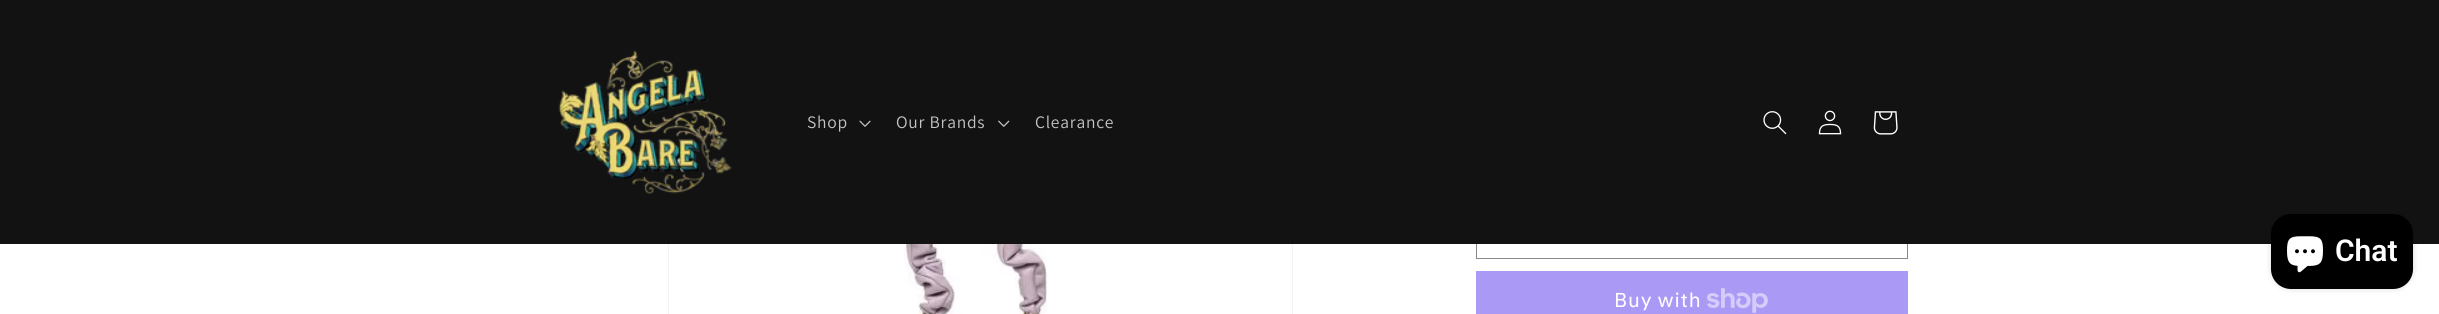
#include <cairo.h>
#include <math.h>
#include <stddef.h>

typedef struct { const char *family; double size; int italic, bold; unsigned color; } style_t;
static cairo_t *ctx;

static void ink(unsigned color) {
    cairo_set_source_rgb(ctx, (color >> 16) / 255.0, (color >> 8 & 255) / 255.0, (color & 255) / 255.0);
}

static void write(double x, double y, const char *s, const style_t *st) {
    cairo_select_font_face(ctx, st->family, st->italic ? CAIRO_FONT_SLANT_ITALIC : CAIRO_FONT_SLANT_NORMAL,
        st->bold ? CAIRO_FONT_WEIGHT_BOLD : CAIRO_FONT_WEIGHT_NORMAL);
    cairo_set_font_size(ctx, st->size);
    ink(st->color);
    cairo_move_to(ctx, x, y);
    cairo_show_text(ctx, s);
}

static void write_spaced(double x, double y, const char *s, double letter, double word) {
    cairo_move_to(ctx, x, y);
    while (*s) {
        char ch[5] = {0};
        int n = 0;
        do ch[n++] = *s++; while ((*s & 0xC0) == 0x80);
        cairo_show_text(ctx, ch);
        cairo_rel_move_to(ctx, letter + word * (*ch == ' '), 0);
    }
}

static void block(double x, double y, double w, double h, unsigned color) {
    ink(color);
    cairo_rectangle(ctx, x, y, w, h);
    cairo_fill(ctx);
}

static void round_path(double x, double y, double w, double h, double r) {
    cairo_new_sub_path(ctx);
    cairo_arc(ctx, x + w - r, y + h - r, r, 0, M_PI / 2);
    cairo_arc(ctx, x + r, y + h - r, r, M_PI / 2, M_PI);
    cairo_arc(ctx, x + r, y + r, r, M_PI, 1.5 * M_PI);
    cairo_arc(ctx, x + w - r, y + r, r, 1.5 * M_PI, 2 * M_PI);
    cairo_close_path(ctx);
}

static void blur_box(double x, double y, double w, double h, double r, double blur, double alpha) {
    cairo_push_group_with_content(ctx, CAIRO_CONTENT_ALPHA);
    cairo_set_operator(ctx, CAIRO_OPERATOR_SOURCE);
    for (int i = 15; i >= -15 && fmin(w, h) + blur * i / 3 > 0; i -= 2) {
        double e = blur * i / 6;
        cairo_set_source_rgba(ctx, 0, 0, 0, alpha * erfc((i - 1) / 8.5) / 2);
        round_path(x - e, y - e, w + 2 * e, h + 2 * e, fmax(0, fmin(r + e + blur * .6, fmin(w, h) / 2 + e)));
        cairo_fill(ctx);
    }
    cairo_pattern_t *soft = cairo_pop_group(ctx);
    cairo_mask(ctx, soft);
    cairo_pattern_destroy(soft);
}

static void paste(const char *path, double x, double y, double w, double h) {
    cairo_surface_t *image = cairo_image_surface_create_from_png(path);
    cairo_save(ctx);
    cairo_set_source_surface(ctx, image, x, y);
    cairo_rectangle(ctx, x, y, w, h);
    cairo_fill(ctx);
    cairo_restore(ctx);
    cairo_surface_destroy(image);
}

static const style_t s1 = {"Roboto SemiBold", 30, 0, 0, 0xffffff};

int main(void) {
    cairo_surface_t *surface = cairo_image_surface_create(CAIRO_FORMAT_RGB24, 2439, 314);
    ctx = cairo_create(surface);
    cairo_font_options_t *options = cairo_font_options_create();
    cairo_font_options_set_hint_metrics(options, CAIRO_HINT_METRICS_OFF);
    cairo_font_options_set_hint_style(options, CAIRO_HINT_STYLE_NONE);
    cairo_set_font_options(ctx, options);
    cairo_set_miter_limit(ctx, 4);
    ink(0xffffff);
    cairo_paint(ctx);
    cairo_rectangle(ctx, 668.5, -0.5, 624, 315);
    ink(0xf3f3f3);
    cairo_set_line_width(ctx, 1);
    cairo_stroke(ctx);
    cairo_rectangle(ctx, 1476.5, 200.5, 431, 58);
    ink(0x898989);
    cairo_stroke(ctx);
    block(0, 0, 2439, 244, 0x121212);
    paste("pic1.png", 558, 50, 174, 145);
    cairo_select_font_face(ctx, "Assistant", CAIRO_FONT_SLANT_NORMAL, CAIRO_FONT_WEIGHT_NORMAL);
    cairo_set_font_size(ctx, 17.5);
    ink(0xc4c4c4);
    write_spaced(807, 128, "Shop", 0.75, 0);
    paste("pic2.png", 859, 120, 12, 7);
    write_spaced(896, 128, "Our Brands", 0.75, 0);
    paste("pic3.png", 998, 120, 12, 7);
    write_spaced(1035, 128, "Clearance", 0.75, 0);
    paste("pic4.png", 1763, 111, 24, 24);
    paste("pic5.png", 1818, 110, 24, 25);
    paste("pic6.png", 1873, 111, 25, 24);
    ink(0x000000);
    blur_box(2271, 214, 142, 75, 20, 3, 0.15);
    ink(0x000000);
    round_path(2271, 214, 142, 75, 20);
    cairo_fill(ctx);
    paste("pic7.png", 2287, 236, 36, 37);
    write(2335, 261, "Chat", &s1);
    paste("pic8.png", 903, 244, 145, 70);
    block(1476, 271, 432, 43, 0xaa99f5);
    cairo_select_font_face(ctx, "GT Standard", CAIRO_FONT_SLANT_NORMAL, CAIRO_FONT_WEIGHT_NORMAL);
    cairo_set_font_size(ctx, 20);
    ink(0xffffff);
    write_spaced(1614, 307, "Buy with", 0.75, 0);
    paste("pic9.png", 1707, 288, 61, 25);
    cairo_surface_write_to_png(surface, "screenshot.png");
    cairo_font_options_destroy(options);
    cairo_destroy(ctx);
    cairo_surface_destroy(surface);
    return 0;
}
